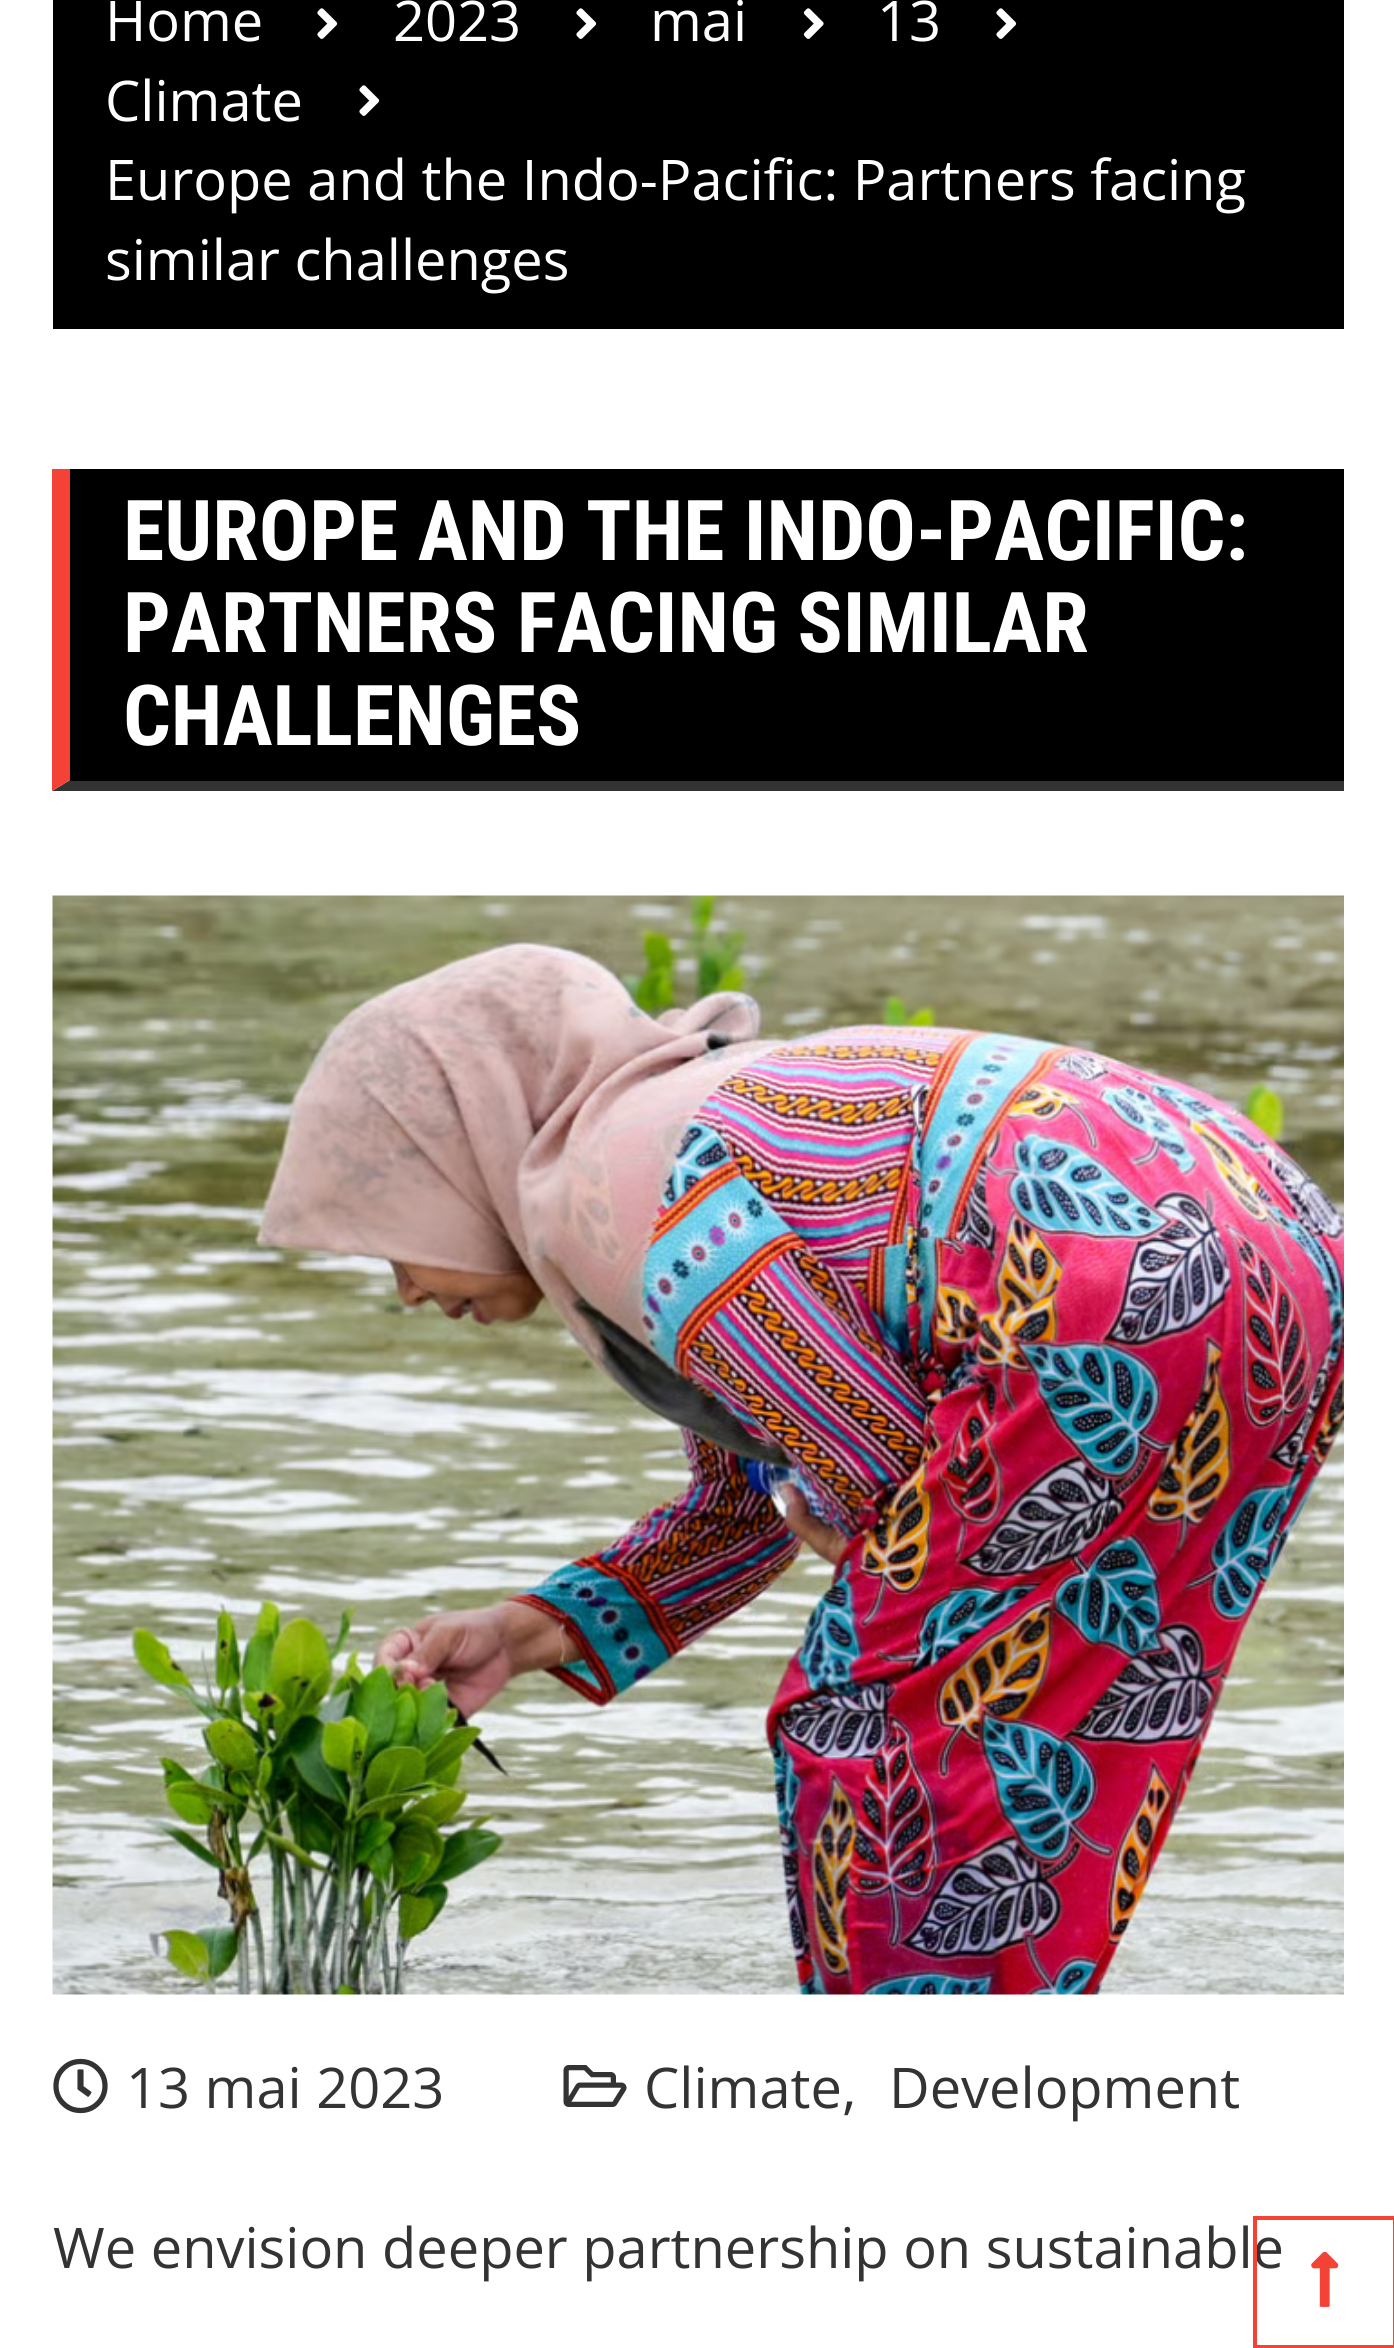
#include <cairo.h>
#include <math.h>
#include <stddef.h>

typedef struct { const char *family; double size; int italic, bold; unsigned color; } style_t;
static cairo_t *ctx;

static void ink(unsigned color) {
    cairo_set_source_rgb(ctx, (color >> 16) / 255.0, (color >> 8 & 255) / 255.0, (color & 255) / 255.0);
}

static void write(double x, double y, const char *s, const style_t *st) {
    cairo_select_font_face(ctx, st->family, st->italic ? CAIRO_FONT_SLANT_ITALIC : CAIRO_FONT_SLANT_NORMAL,
        st->bold ? CAIRO_FONT_WEIGHT_BOLD : CAIRO_FONT_WEIGHT_NORMAL);
    cairo_set_font_size(ctx, st->size);
    ink(st->color);
    cairo_move_to(ctx, x, y);
    cairo_show_text(ctx, s);
}

static void block(double x, double y, double w, double h, unsigned color) {
    ink(color);
    cairo_rectangle(ctx, x, y, w, h);
    cairo_fill(ctx);
}

static void paste(const char *path, double x, double y, double w, double h) {
    cairo_surface_t *image = cairo_image_surface_create_from_png(path);
    cairo_save(ctx);
    cairo_set_source_surface(ctx, image, x, y);
    cairo_rectangle(ctx, x, y, w, h);
    cairo_fill(ctx);
    cairo_restore(ctx);
    cairo_surface_destroy(image);
}

static const style_t s1 = {"Open Sans", 56, 0, 0, 0xffffff};
static const style_t s2 = {"Roboto Condensed", 84, 0, 1, 0xffffff};
static const style_t s3 = {"Open Sans", 56, 0, 0, 0x333333};

int main(void) {
    cairo_surface_t *surface = cairo_image_surface_create(CAIRO_FORMAT_RGB24, 1394, 2348);
    ctx = cairo_create(surface);
    cairo_font_options_t *options = cairo_font_options_create();
    cairo_font_options_set_hint_metrics(options, CAIRO_HINT_METRICS_OFF);
    cairo_font_options_set_hint_style(options, CAIRO_HINT_STYLE_NONE);
    cairo_set_font_options(ctx, options);
    cairo_set_miter_limit(ctx, 4);
    ink(0xffffff);
    cairo_paint(ctx);
    block(53, 0, 1291, 329, 0x000000);
    write(105, 41, "Home", &s1);
    paste("pic1.png", 317, 8, 21, 31);
    write(393, 41, "2023", &s1);
    paste("pic1.png", 576, 8, 21, 31);
    write(650, 41, "mai", &s1);
    paste("pic2.png", 803, 8, 21, 31);
    write(877, 41, "13", &s1);
    paste("pic1.png", 996, 8, 21, 31);
    write(105, 121, "Climate", &s1);
    paste("pic1.png", 359, 85, 21, 31);
    write(105, 200, "Europe and the Indo-Pacific: Partners facing", &s1);
    write(105, 280, "similar challenges", &s1);
    ink(0x333333);
    cairo_new_path(ctx);
    cairo_move_to(ctx, 1344, 791);
    cairo_line_to(ctx, 52, 791);
    cairo_line_to(ctx, 70, 780);
    cairo_line_to(ctx, 1344, 780);
    cairo_close_path(ctx);
    cairo_fill(ctx);
    ink(0xf44336);
    cairo_new_path(ctx);
    cairo_move_to(ctx, 52, 791);
    cairo_line_to(ctx, 52, 469);
    cairo_line_to(ctx, 70, 469);
    cairo_line_to(ctx, 70, 780);
    cairo_close_path(ctx);
    cairo_fill(ctx);
    block(70, 469, 1274, 312, 0x000000);
    write(123, 560, "EUROPE AND THE INDO-PACIFIC:", &s2);
    write(123, 652, "PARTNERS FACING SIMILAR", &s2);
    write(123, 745, "CHALLENGES", &s2);
    paste("pic3.png", 52, 895, 1292, 1100);
    paste("pic4.png", 53, 2058, 55, 56);
    write(126, 2108, "13 mai 2023", &s3);
    paste("pic5.png", 563, 2065, 64, 42);
    write(644, 2108, "Climate,", &s3);
    write(889, 2108, "Development", &s3);
    write(53, 2268, "We envision deeper partnership on sustainable", &s3);
    cairo_rectangle(ctx, 1255, 2218, 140, 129);
    ink(0xf44336);
    cairo_set_line_width(ctx, 4);
    cairo_stroke(ctx);
    paste("pic6.png", 1311, 2251, 28, 56);
    cairo_surface_write_to_png(surface, "screenshot.png");
    cairo_font_options_destroy(options);
    cairo_destroy(ctx);
    cairo_surface_destroy(surface);
    return 0;
}
